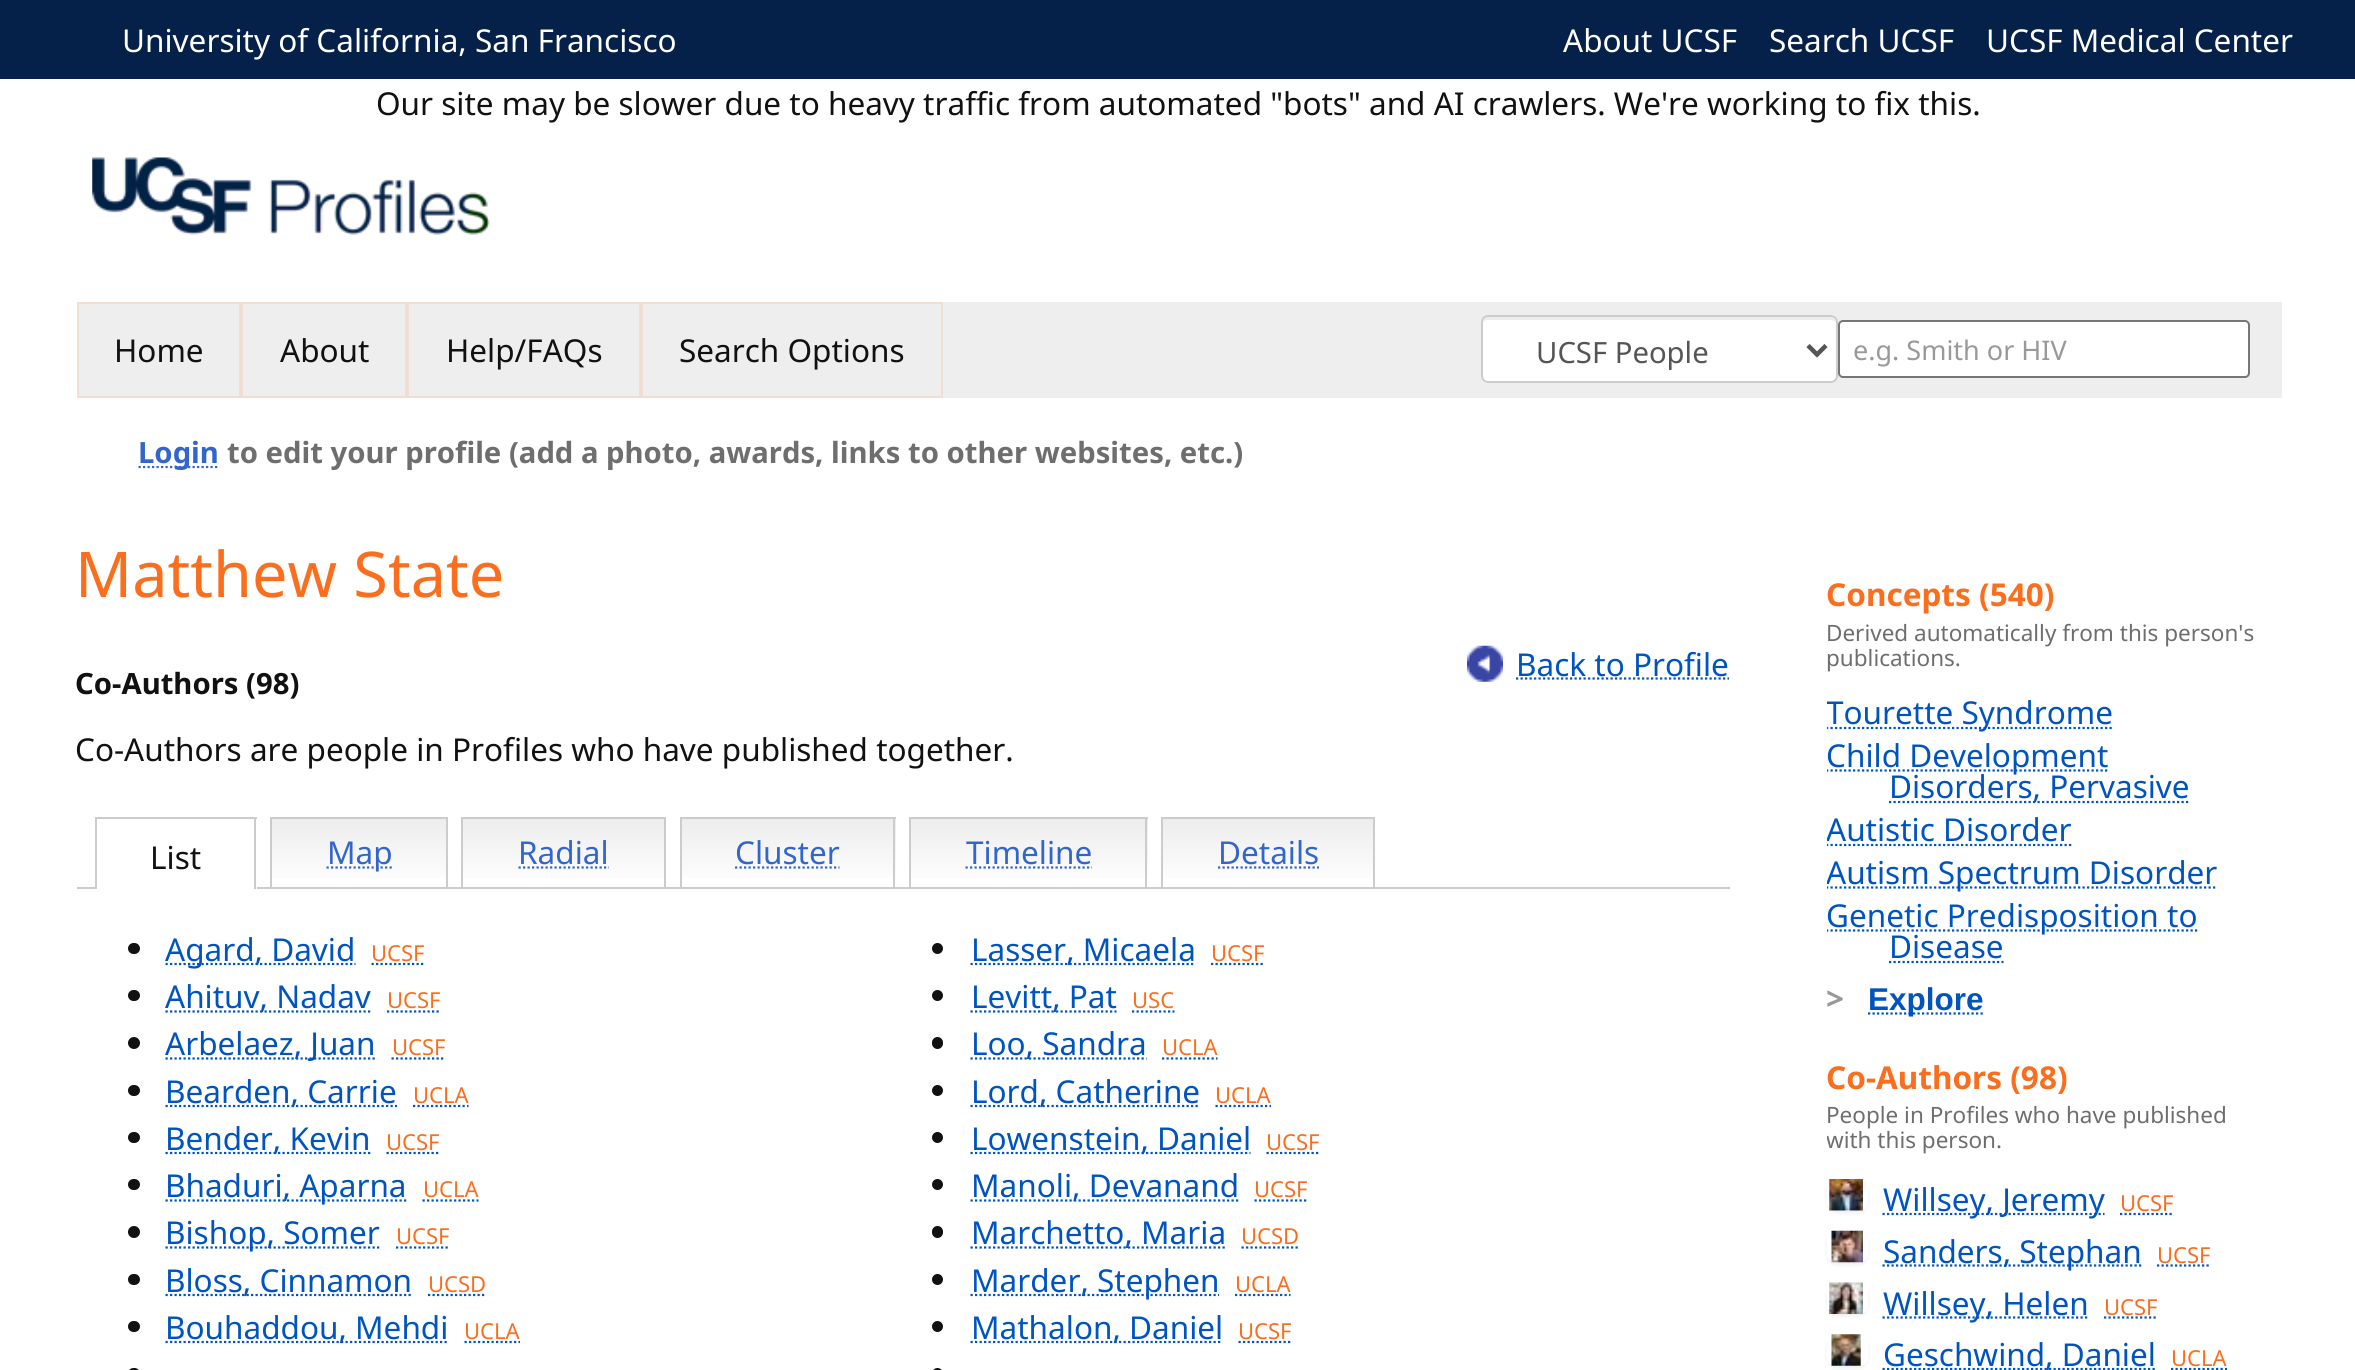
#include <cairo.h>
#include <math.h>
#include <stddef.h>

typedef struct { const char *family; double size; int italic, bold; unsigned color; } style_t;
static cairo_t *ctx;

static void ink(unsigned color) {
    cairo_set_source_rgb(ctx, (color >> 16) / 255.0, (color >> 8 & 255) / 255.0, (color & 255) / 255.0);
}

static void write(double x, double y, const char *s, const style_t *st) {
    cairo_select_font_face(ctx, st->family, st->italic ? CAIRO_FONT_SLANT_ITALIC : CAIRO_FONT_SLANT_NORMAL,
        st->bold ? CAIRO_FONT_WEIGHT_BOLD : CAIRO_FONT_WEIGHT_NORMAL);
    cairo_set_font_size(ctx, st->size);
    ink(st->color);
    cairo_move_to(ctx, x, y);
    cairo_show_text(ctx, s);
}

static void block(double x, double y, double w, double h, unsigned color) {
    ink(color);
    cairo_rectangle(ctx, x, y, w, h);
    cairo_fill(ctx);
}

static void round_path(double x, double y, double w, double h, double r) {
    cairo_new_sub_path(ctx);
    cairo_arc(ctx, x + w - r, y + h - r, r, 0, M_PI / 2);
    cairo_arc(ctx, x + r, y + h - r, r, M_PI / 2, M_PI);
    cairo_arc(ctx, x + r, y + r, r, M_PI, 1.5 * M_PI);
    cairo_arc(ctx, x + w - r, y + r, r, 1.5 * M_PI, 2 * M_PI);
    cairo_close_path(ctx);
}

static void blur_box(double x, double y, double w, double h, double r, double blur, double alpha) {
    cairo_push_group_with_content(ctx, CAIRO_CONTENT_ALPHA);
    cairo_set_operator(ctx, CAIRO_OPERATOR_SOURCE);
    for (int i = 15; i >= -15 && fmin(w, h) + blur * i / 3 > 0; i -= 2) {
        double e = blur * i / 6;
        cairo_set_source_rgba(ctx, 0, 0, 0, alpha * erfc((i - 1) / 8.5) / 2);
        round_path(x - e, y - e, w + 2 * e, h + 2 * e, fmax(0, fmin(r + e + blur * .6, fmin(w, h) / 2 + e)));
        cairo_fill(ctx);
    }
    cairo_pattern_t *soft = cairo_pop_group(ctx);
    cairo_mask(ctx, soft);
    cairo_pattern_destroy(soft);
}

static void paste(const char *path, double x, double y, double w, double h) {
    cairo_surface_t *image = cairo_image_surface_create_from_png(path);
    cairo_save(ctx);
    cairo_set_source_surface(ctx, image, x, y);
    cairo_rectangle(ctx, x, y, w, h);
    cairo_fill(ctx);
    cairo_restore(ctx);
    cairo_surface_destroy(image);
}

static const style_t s1 = {"Noto Sans", 31.5, 0, 0, 0xffffff};
static const style_t s2 = {"Noto Sans", 31.5, 0, 0, 0x111111};
static const style_t s3 = {"Noto Sans", 29.25, 0, 0, 0x555555};
static const style_t s4 = {"Noto Sans", 27, 0, 0, 0x999999};
static const style_t s5 = {"Noto Sans", 29.25, 0, 1, 0x3366cc};
static const style_t s6 = {"Noto Sans", 29.25, 0, 1, 0x6e6e6e};
static const style_t s7 = {"Noto Sans", 63, 0, 0, 0xfa6e1e};
static const style_t s8 = {"Noto Sans", 31.5, 0, 0, 0x0054c0};
static const style_t s9 = {"Noto Sans", 29.25, 0, 1, 0x111111};
static const style_t s10 = {"Noto Sans", 31.5, 0, 0, 0x3366cc};
static const style_t s11 = {"Noto Sans", 22, 0, 0, 0xfa6e1e};
static const style_t s12 = {"Noto Sans", 31.5, 0, 1, 0xfa6e1e};
static const style_t s13 = {"Noto Sans", 22.5, 0, 0, 0x6e6e6e};
static const style_t s14 = {"Noto Sans", 31.5, 0, 1, 0x999999};
static const style_t s15 = {"Liberation Sans", 31.5, 0, 1, 0x0054c0};

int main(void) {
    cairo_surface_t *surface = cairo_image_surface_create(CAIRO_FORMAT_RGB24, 2355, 1370);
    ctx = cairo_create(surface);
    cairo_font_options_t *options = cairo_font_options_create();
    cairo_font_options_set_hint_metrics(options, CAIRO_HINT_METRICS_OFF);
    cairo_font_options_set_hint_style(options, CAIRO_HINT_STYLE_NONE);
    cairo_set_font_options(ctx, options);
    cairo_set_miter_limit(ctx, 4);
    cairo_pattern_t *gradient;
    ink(0xffffff);
    cairo_paint(ctx);
    block(0, 0, 2355, 79, 0x052049);
    write(122, 52, "University of California, San Francisco", &s1);
    write(1563, 52, "About UCSF", &s1);
    write(1769, 52, "Search UCSF", &s1);
    write(1986, 52, "UCSF Medical Center", &s1);
    write(376, 115, "Our site may be slower due to heavy traffic from automated \"bots\" and AI crawlers. We're working to fix this.", &s2);
    paste("pic1.png", 92, 157, 398, 78);
    block(79, 302, 2203, 96, 0xeeeeee);
    cairo_rectangle(ctx, 78, 303, 162, 94);
    ink(0xefded1);
    cairo_stroke(ctx);
    write(114, 362, "Home", &s2);
    cairo_rectangle(ctx, 242, 303, 164, 94);
    ink(0xefded1);
    cairo_stroke(ctx);
    write(280, 362, "About", &s2);
    cairo_rectangle(ctx, 408, 303, 232, 94);
    ink(0xefded1);
    cairo_stroke(ctx);
    write(446, 362, "Help/FAQs", &s2);
    cairo_rectangle(ctx, 642, 303, 300, 94);
    ink(0xefded1);
    cairo_stroke(ctx);
    write(679, 362, "Search Options", &s2);
    ink(0xffffff);
    round_path(1481, 315, 357, 68, 7);
    cairo_fill(ctx);
    ink(0xececec);
    cairo_new_path(ctx);
    cairo_move_to(ctx, 1487, 320);
    cairo_line_to(ctx, 1832, 320);
    cairo_curve_to(ctx, 1834, 320, 1836, 322, 1836, 324);
    cairo_curve_to(ctx, 1836, 321, 1835, 317, 1831, 317);
    cairo_line_to(ctx, 1488, 317);
    cairo_curve_to(ctx, 1484, 317, 1483, 321, 1483, 324);
    cairo_curve_to(ctx, 1483, 322, 1485, 320, 1487, 320);
    cairo_close_path(ctx);
    cairo_fill(ctx);
    round_path(1482, 316, 355, 66, 6);
    ink(0xcccccc);
    cairo_stroke(ctx);
    cairo_new_path(ctx);
    cairo_move_to(ctx, 1808, 345.5);
    cairo_line_to(ctx, 1817, 354.5);
    cairo_line_to(ctx, 1826, 345.5);
    ink(0x555555);
    cairo_set_line_width(ctx, 4.5);
    cairo_stroke(ctx);
    write(1536, 363, "UCSF People", &s3);
    ink(0xffffff);
    round_path(1839, 321, 410, 56, 4);
    cairo_fill_preserve(ctx);
    ink(0x767676);
    cairo_set_line_width(ctx, 2);
    cairo_stroke(ctx);
    write(1853, 360, "e.g. Smith or HIV", &s4);
    cairo_new_path(ctx);
    cairo_move_to(ctx, 138.5, 467);
    cairo_line_to(ctx, 219.5, 467);
    ink(0x3366cc);
    cairo_set_line_width(ctx, 2.2);
    cairo_set_dash(ctx, (double[]){2.25, 2.25}, 2, 0);
    cairo_stroke(ctx);
    write(138, 463, "Login", &s5);
    write(227, 463, "to edit your profile (add a photo, awards, links to other websites, etc.)", &s6);
    write(75, 597, "Matthew State", &s7);
    paste("pic2.png", 1467, 645, 36, 37);
    write(1516, 676, "Back to Profile", &s8);
    cairo_new_path(ctx);
    cairo_move_to(ctx, 1516, 678.5);
    cairo_line_to(ctx, 1729, 678.5);
    cairo_stroke(ctx);
    write(75, 694, "Co-Authors (98)", &s9);
    write(75, 761, "Co-Authors are people in Profiles who have published together.", &s2);
    block(77, 887, 1653, 2, 0xcccccc);
    block(97, 887, 160, 2, 0xffffff);
    block(95, 817, 162, 2, 0xcccccc);
    block(254, 817, 2, 72, 0xcccccc);
    block(95, 817, 2, 72, 0xcccccc);
    write(150, 869, "List", &s2);
    gradient = cairo_pattern_create_linear(359, 819, 359, 887);
    cairo_pattern_add_color_stop_rgba(gradient, 0, 0.929, 0.929, 0.929, 1);
    cairo_pattern_add_color_stop_rgba(gradient, 1, 1, 1, 1, 1);
    cairo_set_source(ctx, gradient);
    cairo_pattern_destroy(gradient);
    cairo_rectangle(ctx, 272, 819, 174, 59);
    cairo_fill(ctx);
    block(270, 817, 178, 2, 0xcccccc);
    block(446, 817, 2, 70, 0xcccccc);
    block(270, 817, 2, 70, 0xcccccc);
    cairo_new_path(ctx);
    cairo_move_to(ctx, 326.5, 867.5);
    cairo_line_to(ctx, 392.5, 867.5);
    ink(0x3366cc);
    cairo_stroke(ctx);
    write(327, 864, "Map", &s10);
    gradient = cairo_pattern_create_linear(564, 819, 564, 887);
    cairo_pattern_add_color_stop_rgba(gradient, 0, 0.929, 0.929, 0.929, 1);
    cairo_pattern_add_color_stop_rgba(gradient, 1, 1, 1, 1, 1);
    cairo_set_source(ctx, gradient);
    cairo_pattern_destroy(gradient);
    cairo_rectangle(ctx, 463, 819, 201, 59);
    cairo_fill(ctx);
    block(461, 817, 205, 2, 0xcccccc);
    block(664, 817, 2, 70, 0xcccccc);
    block(461, 817, 2, 70, 0xcccccc);
    write(518, 864, "Radial", &s10);
    cairo_new_path(ctx);
    cairo_move_to(ctx, 518.5, 867.5);
    cairo_line_to(ctx, 609, 867.5);
    cairo_stroke(ctx);
    gradient = cairo_pattern_create_linear(788, 819, 788, 887);
    cairo_pattern_add_color_stop_rgba(gradient, 0, 0.929, 0.929, 0.929, 1);
    cairo_pattern_add_color_stop_rgba(gradient, 1, 1, 1, 1, 1);
    cairo_set_source(ctx, gradient);
    cairo_pattern_destroy(gradient);
    cairo_rectangle(ctx, 682, 819, 214, 59);
    cairo_fill(ctx);
    block(680, 817, 216, 2, 0xcccccc);
    block(893, 817, 2, 70, 0xcccccc);
    block(680, 817, 2, 70, 0xcccccc);
    write(735, 864, "Cluster", &s10);
    cairo_new_path(ctx);
    cairo_move_to(ctx, 735, 867.5);
    cairo_line_to(ctx, 839.5, 867.5);
    cairo_stroke(ctx);
    gradient = cairo_pattern_create_linear(1028, 819, 1028, 887);
    cairo_pattern_add_color_stop_rgba(gradient, 0, 0.929, 0.929, 0.929, 1);
    cairo_pattern_add_color_stop_rgba(gradient, 1, 1, 1, 1, 1);
    cairo_set_source(ctx, gradient);
    cairo_pattern_destroy(gradient);
    cairo_rectangle(ctx, 911, 819, 237, 59);
    cairo_fill(ctx);
    block(909, 817, 239, 2, 0xcccccc);
    block(1145, 817, 2, 70, 0xcccccc);
    block(909, 817, 2, 70, 0xcccccc);
    write(966, 864, "Timeline", &s10);
    cairo_new_path(ctx);
    cairo_move_to(ctx, 965.5, 867.5);
    cairo_line_to(ctx, 1092, 867.5);
    cairo_stroke(ctx);
    gradient = cairo_pattern_create_linear(1268, 819, 1268, 887);
    cairo_pattern_add_color_stop_rgba(gradient, 0, 0.929, 0.929, 0.929, 1);
    cairo_pattern_add_color_stop_rgba(gradient, 1, 1, 1, 1, 1);
    cairo_set_source(ctx, gradient);
    cairo_pattern_destroy(gradient);
    cairo_rectangle(ctx, 1163, 819, 210, 59);
    cairo_fill(ctx);
    block(1161, 817, 214, 2, 0xcccccc);
    block(1373, 817, 2, 70, 0xcccccc);
    block(1161, 817, 2, 70, 0xcccccc);
    write(1218, 864, "Details", &s10);
    cairo_new_path(ctx);
    cairo_move_to(ctx, 1218, 867.5);
    cairo_line_to(ctx, 1319, 867.5);
    cairo_stroke(ctx);
    ink(0x111111);
    round_path(128, 943, 12, 11, 5.5);
    cairo_fill(ctx);
    cairo_new_path(ctx);
    cairo_move_to(ctx, 165.5, 964);
    cairo_line_to(ctx, 355.5, 964);
    ink(0x0054c0);
    cairo_stroke(ctx);
    write(165, 961, "Agard, David", &s8);
    write(371, 961, "UCSF", &s11);
    cairo_new_path(ctx);
    cairo_move_to(ctx, 371.5, 964);
    cairo_line_to(ctx, 425, 964);
    ink(0x0054c0);
    cairo_stroke(ctx);
    ink(0x111111);
    round_path(128, 990, 12, 11, 5.5);
    cairo_fill(ctx);
    cairo_new_path(ctx);
    cairo_move_to(ctx, 165.5, 1011.5);
    cairo_line_to(ctx, 371, 1011.5);
    ink(0x0054c0);
    cairo_stroke(ctx);
    write(165, 1008, "Ahituv, Nadav", &s8);
    write(387, 1008, "UCSF", &s11);
    cairo_new_path(ctx);
    cairo_move_to(ctx, 387, 1011.5);
    cairo_line_to(ctx, 440.5, 1011.5);
    ink(0x0054c0);
    cairo_stroke(ctx);
    ink(0x111111);
    cairo_arc(ctx, 134, 1043, 6, 0, 2 * M_PI);
    cairo_fill(ctx);
    cairo_new_path(ctx);
    cairo_move_to(ctx, 165.5, 1058.5);
    cairo_line_to(ctx, 376, 1058.5);
    ink(0x0054c0);
    cairo_stroke(ctx);
    write(165, 1055, "Arbelaez, Juan", &s8);
    write(392, 1055, "UCSF", &s11);
    cairo_new_path(ctx);
    cairo_move_to(ctx, 391.5, 1058.5);
    cairo_line_to(ctx, 445.5, 1058.5);
    ink(0x0054c0);
    cairo_stroke(ctx);
    ink(0x111111);
    round_path(128, 1085, 12, 11, 5.5);
    cairo_fill(ctx);
    cairo_new_path(ctx);
    cairo_move_to(ctx, 165.5, 1106);
    cairo_line_to(ctx, 397, 1106);
    ink(0x0054c0);
    cairo_stroke(ctx);
    write(165, 1103, "Bearden, Carrie", &s8);
    write(413, 1103, "UCLA", &s11);
    cairo_new_path(ctx);
    cairo_move_to(ctx, 413, 1106);
    cairo_line_to(ctx, 468.5, 1106);
    ink(0x0054c0);
    cairo_stroke(ctx);
    ink(0x111111);
    round_path(128, 1132, 12, 11, 5.5);
    cairo_fill(ctx);
    cairo_new_path(ctx);
    cairo_move_to(ctx, 165.5, 1153);
    cairo_line_to(ctx, 370.5, 1153);
    ink(0x0054c0);
    cairo_stroke(ctx);
    write(165, 1150, "Bender, Kevin", &s8);
    write(386, 1150, "UCSF", &s11);
    cairo_new_path(ctx);
    cairo_move_to(ctx, 386.5, 1153);
    cairo_line_to(ctx, 440, 1153);
    ink(0x0054c0);
    cairo_stroke(ctx);
    ink(0x111111);
    round_path(128, 1179, 12, 11, 5.5);
    cairo_fill(ctx);
    cairo_new_path(ctx);
    cairo_move_to(ctx, 165.5, 1200.5);
    cairo_line_to(ctx, 407, 1200.5);
    ink(0x0054c0);
    cairo_stroke(ctx);
    write(165, 1197, "Bhaduri, Aparna", &s8);
    write(423, 1197, "UCLA", &s11);
    cairo_new_path(ctx);
    cairo_move_to(ctx, 422.5, 1200.5);
    cairo_line_to(ctx, 478.5, 1200.5);
    ink(0x0054c0);
    cairo_stroke(ctx);
    ink(0x111111);
    cairo_arc(ctx, 134, 1232, 6, 0, 2 * M_PI);
    cairo_fill(ctx);
    cairo_new_path(ctx);
    cairo_move_to(ctx, 165.5, 1247.5);
    cairo_line_to(ctx, 380, 1247.5);
    ink(0x0054c0);
    cairo_stroke(ctx);
    write(165, 1244, "Bishop, Somer", &s8);
    write(396, 1244, "UCSF", &s11);
    cairo_new_path(ctx);
    cairo_move_to(ctx, 396, 1247.5);
    cairo_line_to(ctx, 449.5, 1247.5);
    ink(0x0054c0);
    cairo_stroke(ctx);
    ink(0x111111);
    round_path(128, 1274, 12, 11, 5.5);
    cairo_fill(ctx);
    cairo_new_path(ctx);
    cairo_move_to(ctx, 165.5, 1295);
    cairo_line_to(ctx, 412.5, 1295);
    ink(0x0054c0);
    cairo_stroke(ctx);
    write(165, 1292, "Bloss, Cinnamon", &s8);
    write(428, 1292, "UCSD", &s11);
    cairo_new_path(ctx);
    cairo_move_to(ctx, 428, 1295);
    cairo_line_to(ctx, 486.5, 1295);
    ink(0x0054c0);
    cairo_stroke(ctx);
    ink(0x111111);
    round_path(128, 1321, 12, 11, 5.5);
    cairo_fill(ctx);
    cairo_new_path(ctx);
    cairo_move_to(ctx, 165.5, 1342);
    cairo_line_to(ctx, 448.5, 1342);
    ink(0x0054c0);
    cairo_stroke(ctx);
    write(165, 1339, "Bouhaddou, Mehdi", &s8);
    write(464, 1339, "UCLA", &s11);
    cairo_new_path(ctx);
    cairo_move_to(ctx, 464.5, 1342);
    cairo_line_to(ctx, 520, 1342);
    ink(0x0054c0);
    cairo_stroke(ctx);
    ink(0x111111);
    round_path(128, 1368, 12, 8, 5.5);
    cairo_fill(ctx);
    cairo_arc(ctx, 937.5, 948.5, 5.5, 0, 2 * M_PI);
    cairo_fill(ctx);
    cairo_new_path(ctx);
    cairo_move_to(ctx, 970.5, 964);
    cairo_line_to(ctx, 1195.5, 964);
    ink(0x0054c0);
    cairo_stroke(ctx);
    write(971, 961, "Lasser, Micaela", &s8);
    write(1211, 961, "UCSF", &s11);
    cairo_new_path(ctx);
    cairo_move_to(ctx, 1211, 964);
    cairo_line_to(ctx, 1264.5, 964);
    ink(0x0054c0);
    cairo_stroke(ctx);
    ink(0x111111);
    cairo_arc(ctx, 937.5, 995.5, 5.5, 0, 2 * M_PI);
    cairo_fill(ctx);
    cairo_new_path(ctx);
    cairo_move_to(ctx, 970.5, 1011.5);
    cairo_line_to(ctx, 1116.5, 1011.5);
    ink(0x0054c0);
    cairo_stroke(ctx);
    write(971, 1008, "Levitt, Pat", &s8);
    write(1132, 1008, "USC", &s11);
    cairo_new_path(ctx);
    cairo_move_to(ctx, 1132, 1011.5);
    cairo_line_to(ctx, 1174.5, 1011.5);
    ink(0x0054c0);
    cairo_stroke(ctx);
    ink(0x111111);
    round_path(932, 1037, 11, 12, 5.5);
    cairo_fill(ctx);
    cairo_new_path(ctx);
    cairo_move_to(ctx, 970.5, 1058.5);
    cairo_line_to(ctx, 1146.5, 1058.5);
    ink(0x0054c0);
    cairo_stroke(ctx);
    write(971, 1055, "Loo, Sandra", &s8);
    write(1162, 1055, "UCLA", &s11);
    cairo_new_path(ctx);
    cairo_move_to(ctx, 1162, 1058.5);
    cairo_line_to(ctx, 1217.5, 1058.5);
    ink(0x0054c0);
    cairo_stroke(ctx);
    ink(0x111111);
    cairo_arc(ctx, 937.5, 1090.5, 5.5, 0, 2 * M_PI);
    cairo_fill(ctx);
    cairo_new_path(ctx);
    cairo_move_to(ctx, 970.5, 1106);
    cairo_line_to(ctx, 1199.5, 1106);
    ink(0x0054c0);
    cairo_stroke(ctx);
    write(971, 1103, "Lord, Catherine", &s8);
    write(1215, 1103, "UCLA", &s11);
    cairo_new_path(ctx);
    cairo_move_to(ctx, 1215.5, 1106);
    cairo_line_to(ctx, 1271, 1106);
    ink(0x0054c0);
    cairo_stroke(ctx);
    ink(0x111111);
    cairo_arc(ctx, 937.5, 1137.5, 5.5, 0, 2 * M_PI);
    cairo_fill(ctx);
    cairo_new_path(ctx);
    cairo_move_to(ctx, 970.5, 1153);
    cairo_line_to(ctx, 1250.5, 1153);
    ink(0x0054c0);
    cairo_stroke(ctx);
    write(971, 1150, "Lowenstein, Daniel", &s8);
    write(1266, 1150, "UCSF", &s11);
    cairo_new_path(ctx);
    cairo_move_to(ctx, 1266.5, 1153);
    cairo_line_to(ctx, 1320, 1153);
    ink(0x0054c0);
    cairo_stroke(ctx);
    ink(0x111111);
    cairo_arc(ctx, 937.5, 1184.5, 5.5, 0, 2 * M_PI);
    cairo_fill(ctx);
    cairo_new_path(ctx);
    cairo_move_to(ctx, 970.5, 1200.5);
    cairo_line_to(ctx, 1238.5, 1200.5);
    ink(0x0054c0);
    cairo_stroke(ctx);
    write(971, 1197, "Manoli, Devanand", &s8);
    write(1254, 1197, "UCSF", &s11);
    cairo_new_path(ctx);
    cairo_move_to(ctx, 1254.5, 1200.5);
    cairo_line_to(ctx, 1308, 1200.5);
    ink(0x0054c0);
    cairo_stroke(ctx);
    ink(0x111111);
    round_path(932, 1226, 11, 12, 5.5);
    cairo_fill(ctx);
    cairo_new_path(ctx);
    cairo_move_to(ctx, 970.5, 1247.5);
    cairo_line_to(ctx, 1225.5, 1247.5);
    ink(0x0054c0);
    cairo_stroke(ctx);
    write(971, 1244, "Marchetto, Maria", &s8);
    write(1241, 1244, "UCSD", &s11);
    cairo_new_path(ctx);
    cairo_move_to(ctx, 1241.5, 1247.5);
    cairo_line_to(ctx, 1299.5, 1247.5);
    ink(0x0054c0);
    cairo_stroke(ctx);
    ink(0x111111);
    cairo_arc(ctx, 937.5, 1279.5, 5.5, 0, 2 * M_PI);
    cairo_fill(ctx);
    cairo_new_path(ctx);
    cairo_move_to(ctx, 970.5, 1295);
    cairo_line_to(ctx, 1219, 1295);
    ink(0x0054c0);
    cairo_stroke(ctx);
    write(971, 1292, "Marder, Stephen", &s8);
    write(1235, 1292, "UCLA", &s11);
    cairo_new_path(ctx);
    cairo_move_to(ctx, 1235, 1295);
    cairo_line_to(ctx, 1290.5, 1295);
    ink(0x0054c0);
    cairo_stroke(ctx);
    ink(0x111111);
    cairo_arc(ctx, 937.5, 1326.5, 5.5, 0, 2 * M_PI);
    cairo_fill(ctx);
    cairo_new_path(ctx);
    cairo_move_to(ctx, 970.5, 1342);
    cairo_line_to(ctx, 1222.5, 1342);
    ink(0x0054c0);
    cairo_stroke(ctx);
    write(971, 1339, "Mathalon, Daniel", &s8);
    write(1238, 1339, "UCSF", &s11);
    cairo_new_path(ctx);
    cairo_move_to(ctx, 1238.5, 1342);
    cairo_line_to(ctx, 1292, 1342);
    ink(0x0054c0);
    cairo_stroke(ctx);
    ink(0x111111);
    round_path(932, 1368, 11, 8, 5.5);
    cairo_fill(ctx);
    write(1826, 606, "Concepts (540)", &s12);
    write(1826, 641, "Derived automatically from this person's", &s13);
    write(1826, 666, "publications.", &s13);
    cairo_save(ctx);
    cairo_rectangle(ctx, 1827, 698, 437, 276);
    cairo_clip(ctx);
    cairo_new_path(ctx);
    cairo_move_to(ctx, 1826, 728);
    cairo_line_to(ctx, 2113, 728);
    ink(0x0054c0);
    cairo_stroke(ctx);
    write(1826, 724, "Tourette Syndrome", &s8);
    cairo_new_path(ctx);
    cairo_move_to(ctx, 1826, 770.5);
    cairo_line_to(ctx, 2108, 770.5);
    cairo_stroke(ctx);
    cairo_restore(ctx);
    write(1826, 767, "Child Development", &s8);
    cairo_new_path(ctx);
    cairo_move_to(ctx, 1889, 802);
    cairo_line_to(ctx, 2189.5, 802);
    cairo_stroke(ctx);
    write(1889, 798, "Disorders, Pervasive", &s8);
    cairo_save(ctx);
    cairo_rectangle(ctx, 1827, 698, 437, 276);
    cairo_clip(ctx);
    write(1826, 841, "Autistic Disorder", &s8);
    cairo_new_path(ctx);
    cairo_move_to(ctx, 1826, 845);
    cairo_line_to(ctx, 2071.5, 845);
    cairo_stroke(ctx);
    cairo_new_path(ctx);
    cairo_move_to(ctx, 1826, 887.5);
    cairo_line_to(ctx, 2217, 887.5);
    cairo_stroke(ctx);
    write(1826, 884, "Autism Spectrum Disorder", &s8);
    cairo_new_path(ctx);
    cairo_move_to(ctx, 1826, 930.5);
    cairo_line_to(ctx, 2197.5, 930.5);
    cairo_stroke(ctx);
    cairo_restore(ctx);
    write(1826, 927, "Genetic Predisposition to", &s8);
    write(1889, 958, "Disease", &s8);
    cairo_new_path(ctx);
    cairo_move_to(ctx, 1889, 962);
    cairo_line_to(ctx, 2003.5, 962);
    cairo_stroke(ctx);
    write(1826, 1010, ">", &s14);
    cairo_new_path(ctx);
    cairo_move_to(ctx, 1868, 1013.5);
    cairo_line_to(ctx, 1983.5, 1013.5);
    ink(0x0054c0);
    cairo_stroke(ctx);
    write(1868, 1010, "Explore", &s15);
    write(1826, 1089, "Co-Authors (98)", &s12);
    write(1826, 1123, "People in Profiles who have published", &s13);
    cairo_save(ctx);
    cairo_rectangle(ctx, 1827, 1053, 437, 126);
    cairo_clip(ctx);
    write(1826, 1148, "with this person.", &s13);
    cairo_restore(ctx);
    cairo_save(ctx);
    cairo_set_fill_rule(ctx, CAIRO_FILL_RULE_EVEN_ODD);
    cairo_new_path(ctx);
    cairo_move_to(ctx, 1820, 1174);
    cairo_line_to(ctx, 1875, 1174);
    cairo_line_to(ctx, 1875, 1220);
    cairo_line_to(ctx, 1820, 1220);
    cairo_close_path(ctx);
    cairo_move_to(ctx, 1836, 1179);
    cairo_line_to(ctx, 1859, 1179);
    cairo_curve_to(ctx, 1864, 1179, 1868, 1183, 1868, 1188);
    cairo_line_to(ctx, 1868, 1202);
    cairo_curve_to(ctx, 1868, 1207, 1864, 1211, 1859, 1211);
    cairo_line_to(ctx, 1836, 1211);
    cairo_curve_to(ctx, 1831, 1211, 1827, 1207, 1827, 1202);
    cairo_line_to(ctx, 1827, 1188);
    cairo_curve_to(ctx, 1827, 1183, 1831, 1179, 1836, 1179);
    cairo_close_path(ctx);
    cairo_clip(ctx);
    ink(0x000000);
    blur_box(1827, 1181, 41, 32, 9, 2, 0.07);
    cairo_restore(ctx);
    ink(0xffffff);
    round_path(1827, 1179, 41, 32, 9);
    cairo_fill(ctx);
    paste("pic3.png", 1829, 1179, 34, 32);
    cairo_new_path(ctx);
    cairo_move_to(ctx, 1882.5, 1214);
    cairo_line_to(ctx, 2104.5, 1214);
    ink(0x0054c0);
    cairo_stroke(ctx);
    write(1883, 1211, "Willsey, Jeremy", &s8);
    write(2120, 1211, "UCSF", &s11);
    cairo_new_path(ctx);
    cairo_move_to(ctx, 2120, 1214);
    cairo_line_to(ctx, 2174, 1214);
    ink(0x0054c0);
    cairo_stroke(ctx);
    cairo_save(ctx);
    cairo_set_fill_rule(ctx, CAIRO_FILL_RULE_EVEN_ODD);
    cairo_new_path(ctx);
    cairo_move_to(ctx, 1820, 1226);
    cairo_line_to(ctx, 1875, 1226);
    cairo_line_to(ctx, 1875, 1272);
    cairo_line_to(ctx, 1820, 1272);
    cairo_close_path(ctx);
    cairo_move_to(ctx, 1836, 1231);
    cairo_line_to(ctx, 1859, 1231);
    cairo_curve_to(ctx, 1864, 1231, 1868, 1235, 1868, 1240);
    cairo_line_to(ctx, 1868, 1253);
    cairo_curve_to(ctx, 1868, 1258, 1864, 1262, 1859, 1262);
    cairo_line_to(ctx, 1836, 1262);
    cairo_curve_to(ctx, 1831, 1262, 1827, 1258, 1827, 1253);
    cairo_line_to(ctx, 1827, 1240);
    cairo_curve_to(ctx, 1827, 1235, 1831, 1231, 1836, 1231);
    cairo_close_path(ctx);
    cairo_clip(ctx);
    ink(0x000000);
    blur_box(1827, 1233, 41, 32, 9, 2, 0.07);
    cairo_restore(ctx);
    ink(0xffffff);
    round_path(1827, 1231, 41, 31, 9);
    cairo_fill(ctx);
    paste("pic4.png", 1831, 1230, 32, 33);
    cairo_new_path(ctx);
    cairo_move_to(ctx, 1882.5, 1265.5);
    cairo_line_to(ctx, 2141.5, 1265.5);
    ink(0x0054c0);
    cairo_stroke(ctx);
    write(1883, 1263, "Sanders, Stephan", &s8);
    write(2157, 1263, "UCSF", &s11);
    cairo_new_path(ctx);
    cairo_move_to(ctx, 2157, 1265.5);
    cairo_line_to(ctx, 2210.5, 1265.5);
    ink(0x0054c0);
    cairo_stroke(ctx);
    cairo_save(ctx);
    cairo_set_fill_rule(ctx, CAIRO_FILL_RULE_EVEN_ODD);
    cairo_new_path(ctx);
    cairo_move_to(ctx, 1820, 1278);
    cairo_line_to(ctx, 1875, 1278);
    cairo_line_to(ctx, 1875, 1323);
    cairo_line_to(ctx, 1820, 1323);
    cairo_close_path(ctx);
    cairo_move_to(ctx, 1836, 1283);
    cairo_line_to(ctx, 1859, 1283);
    cairo_curve_to(ctx, 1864, 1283, 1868, 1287, 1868, 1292);
    cairo_line_to(ctx, 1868, 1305);
    cairo_curve_to(ctx, 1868, 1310, 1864, 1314, 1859, 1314);
    cairo_line_to(ctx, 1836, 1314);
    cairo_curve_to(ctx, 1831, 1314, 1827, 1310, 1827, 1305);
    cairo_line_to(ctx, 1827, 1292);
    cairo_curve_to(ctx, 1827, 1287, 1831, 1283, 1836, 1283);
    cairo_close_path(ctx);
    cairo_clip(ctx);
    ink(0x000000);
    blur_box(1827, 1285, 41, 31, 9, 2, 0.07);
    cairo_restore(ctx);
    ink(0xffffff);
    round_path(1827, 1283, 41, 31, 9);
    cairo_fill(ctx);
    paste("pic5.png", 1829, 1282, 34, 32);
    cairo_new_path(ctx);
    cairo_move_to(ctx, 1882.5, 1317.5);
    cairo_line_to(ctx, 2088, 1317.5);
    ink(0x0054c0);
    cairo_stroke(ctx);
    write(1883, 1315, "Willsey, Helen", &s8);
    write(2104, 1315, "UCSF", &s11);
    cairo_new_path(ctx);
    cairo_move_to(ctx, 2104, 1317.5);
    cairo_line_to(ctx, 2157.5, 1317.5);
    ink(0x0054c0);
    cairo_stroke(ctx);
    cairo_save(ctx);
    cairo_set_fill_rule(ctx, CAIRO_FILL_RULE_EVEN_ODD);
    cairo_new_path(ctx);
    cairo_move_to(ctx, 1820, 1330);
    cairo_line_to(ctx, 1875, 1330);
    cairo_line_to(ctx, 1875, 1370);
    cairo_line_to(ctx, 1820, 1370);
    cairo_close_path(ctx);
    cairo_move_to(ctx, 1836, 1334);
    cairo_line_to(ctx, 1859, 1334);
    cairo_curve_to(ctx, 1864, 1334, 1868, 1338, 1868, 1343);
    cairo_line_to(ctx, 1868, 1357);
    cairo_curve_to(ctx, 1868, 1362, 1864, 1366, 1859, 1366);
    cairo_line_to(ctx, 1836, 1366);
    cairo_curve_to(ctx, 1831, 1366, 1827, 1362, 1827, 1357);
    cairo_line_to(ctx, 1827, 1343);
    cairo_curve_to(ctx, 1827, 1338, 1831, 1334, 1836, 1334);
    cairo_close_path(ctx);
    cairo_clip(ctx);
    ink(0x000000);
    blur_box(1827, 1337, 41, 31, 9, 2, 0.07);
    cairo_restore(ctx);
    ink(0xffffff);
    round_path(1827, 1334, 41, 32, 9);
    cairo_fill(ctx);
    paste("pic6.png", 1831, 1334, 30, 32);
    cairo_new_path(ctx);
    cairo_move_to(ctx, 1882.5, 1369);
    cairo_line_to(ctx, 2155.5, 1369);
    ink(0x0054c0);
    cairo_stroke(ctx);
    write(1883, 1366, "Geschwind, Daniel", &s8);
    write(2171, 1366, "UCLA", &s11);
    cairo_new_path(ctx);
    cairo_move_to(ctx, 2171, 1369);
    cairo_line_to(ctx, 2227, 1369);
    ink(0x0054c0);
    cairo_stroke(ctx);
    cairo_surface_write_to_png(surface, "screenshot.png");
    cairo_font_options_destroy(options);
    cairo_destroy(ctx);
    cairo_surface_destroy(surface);
    return 0;
}
